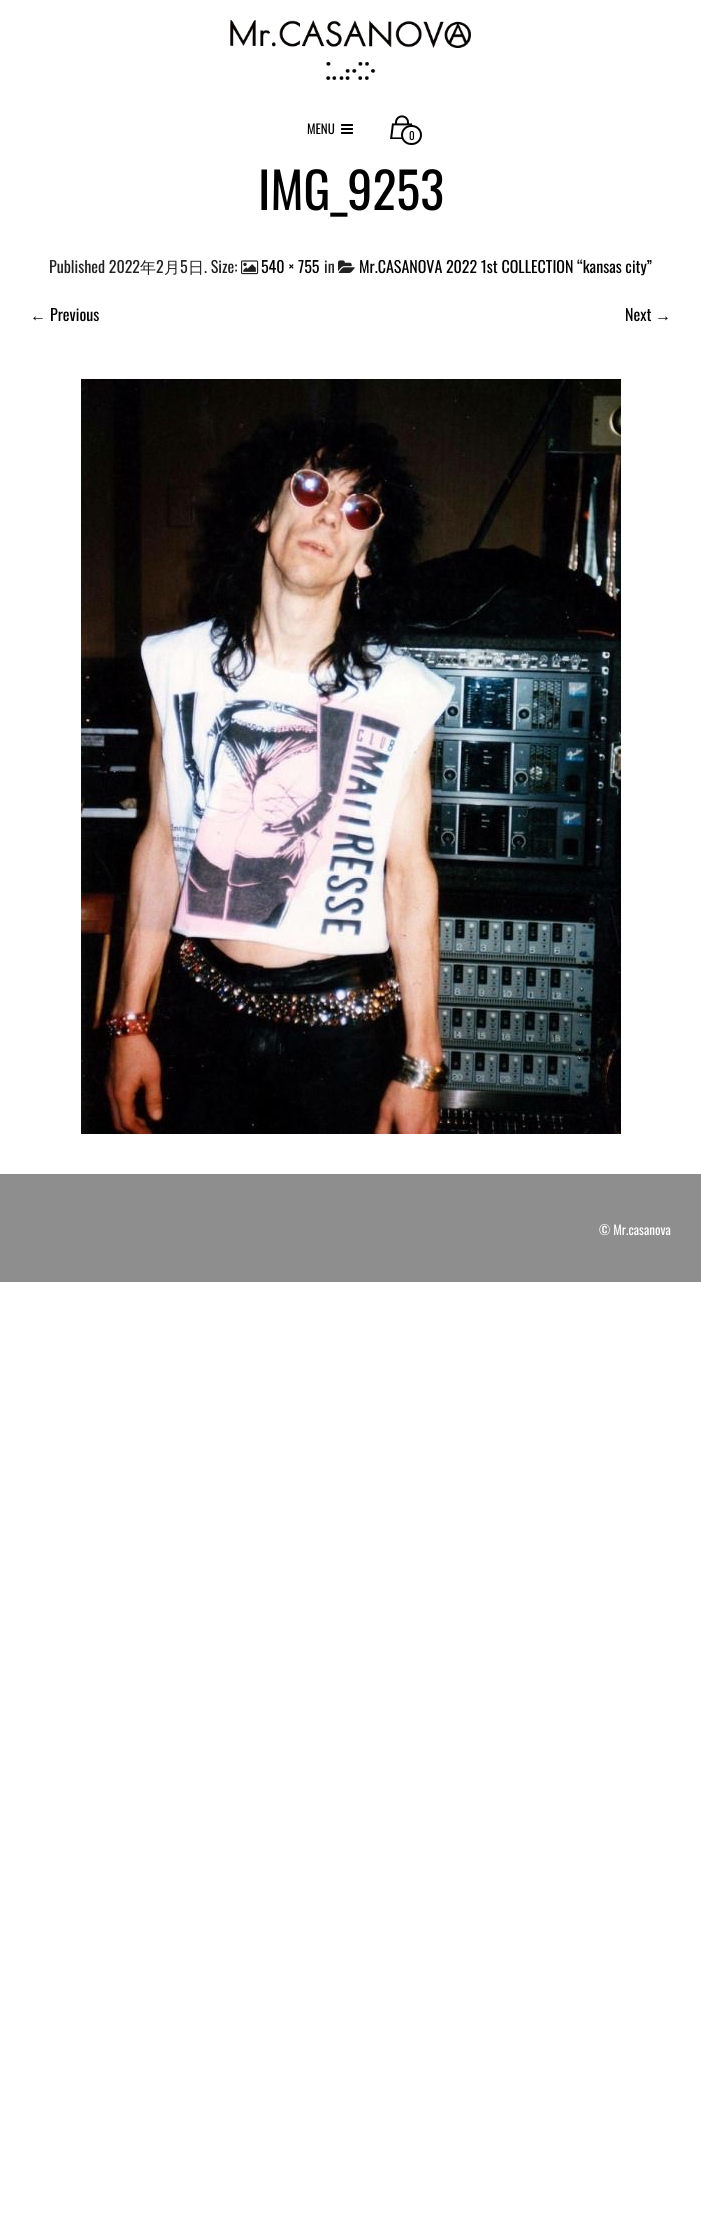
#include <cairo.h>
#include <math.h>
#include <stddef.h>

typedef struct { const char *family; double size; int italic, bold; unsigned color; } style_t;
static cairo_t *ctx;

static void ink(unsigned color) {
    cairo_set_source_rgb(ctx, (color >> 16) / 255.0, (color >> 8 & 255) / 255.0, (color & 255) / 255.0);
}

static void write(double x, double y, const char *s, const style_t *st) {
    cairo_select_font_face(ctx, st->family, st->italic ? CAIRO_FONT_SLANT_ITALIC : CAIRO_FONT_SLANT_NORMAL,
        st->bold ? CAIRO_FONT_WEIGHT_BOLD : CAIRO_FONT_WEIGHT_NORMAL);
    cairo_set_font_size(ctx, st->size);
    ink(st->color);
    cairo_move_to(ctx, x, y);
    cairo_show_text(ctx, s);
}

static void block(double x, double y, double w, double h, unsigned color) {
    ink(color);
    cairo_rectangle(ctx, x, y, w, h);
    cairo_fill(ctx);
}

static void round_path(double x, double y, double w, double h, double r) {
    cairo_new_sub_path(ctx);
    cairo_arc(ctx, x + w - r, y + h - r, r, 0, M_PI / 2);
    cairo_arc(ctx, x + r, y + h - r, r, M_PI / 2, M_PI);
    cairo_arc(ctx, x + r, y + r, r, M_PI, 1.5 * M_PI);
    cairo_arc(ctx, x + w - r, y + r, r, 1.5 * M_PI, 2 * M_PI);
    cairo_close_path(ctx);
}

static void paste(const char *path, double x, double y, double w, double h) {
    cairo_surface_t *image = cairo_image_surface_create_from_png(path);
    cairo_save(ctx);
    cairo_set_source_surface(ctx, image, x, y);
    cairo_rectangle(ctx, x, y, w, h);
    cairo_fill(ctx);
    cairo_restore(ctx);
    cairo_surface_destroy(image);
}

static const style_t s1 = {"Oswald", 13, 0, 0, 0x000000};
static const style_t s2 = {"Oswald", 11, 0, 0, 0x000000};
static const style_t s3 = {"Oswald", 50, 0, 0, 0x000000};
static const style_t s4 = {"Oswald", 16, 0, 0, 0x222222};
static const style_t s5 = {"WenQuanYi Zen Hei Medium", 16, 0, 0, 0x222222};
static const style_t s6 = {"Oswald", 16, 0, 0, 0x000000};
static const style_t s7 = {"Liberation Sans", 16, 0, 0, 0x000000};
static const style_t s8 = {"Oswald", 13, 0, 0, 0xffffff};

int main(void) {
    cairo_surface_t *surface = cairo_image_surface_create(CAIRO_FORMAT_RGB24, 701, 2233);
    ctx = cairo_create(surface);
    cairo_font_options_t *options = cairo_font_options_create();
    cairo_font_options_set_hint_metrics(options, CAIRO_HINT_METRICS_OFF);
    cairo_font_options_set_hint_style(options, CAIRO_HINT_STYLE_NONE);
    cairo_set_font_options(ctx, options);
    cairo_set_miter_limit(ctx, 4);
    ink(0xffffff);
    cairo_paint(ctx);
    paste("pic1.png", 230, 20, 241, 60);
    write(307, 134, "MENU", &s1);
    paste("pic2.png", 341, 124, 12, 10);
    paste("pic3.png", 390, 115, 23, 24);
    ink(0xffffff);
    round_path(402, 126, 19, 18, 9);
    cairo_fill_preserve(ctx);
    ink(0x020202);
    cairo_stroke(ctx);
    write(409, 140, "0", &s2);
    write(258, 210, "IMG_9253", &s3);
    write(49, 273, "Published 2022", &s4);
    write(140, 273, "年", &s5);
    write(156, 273, "2", &s4);
    write(164, 273, "月", &s5);
    write(180, 273, "5", &s4);
    write(188, 273, "日", &s5);
    write(204, 273, ". Size:", &s4);
    paste("pic4.png", 241, 260, 18, 15);
    write(261, 273, "540 × 755", &s6);
    write(324, 273, "in", &s4);
    paste("pic5.png", 338, 260, 17, 13);
    write(359, 273, "Mr.CASANOVA 2022 1st COLLECTION “kansas city”", &s6);
    write(30, 321, "←", &s7);
    write(50, 321, "Previous", &s6);
    write(625, 321, "Next", &s6);
    write(655, 321, "→", &s7);
    paste("pic6.png", 81, 379, 540, 755);
    block(0, 1174, 701, 108, 0x8e8e8e);
    write(599, 1235, "© Mr.casanova", &s8);
    cairo_surface_write_to_png(surface, "screenshot.png");
    cairo_font_options_destroy(options);
    cairo_destroy(ctx);
    cairo_surface_destroy(surface);
    return 0;
}
